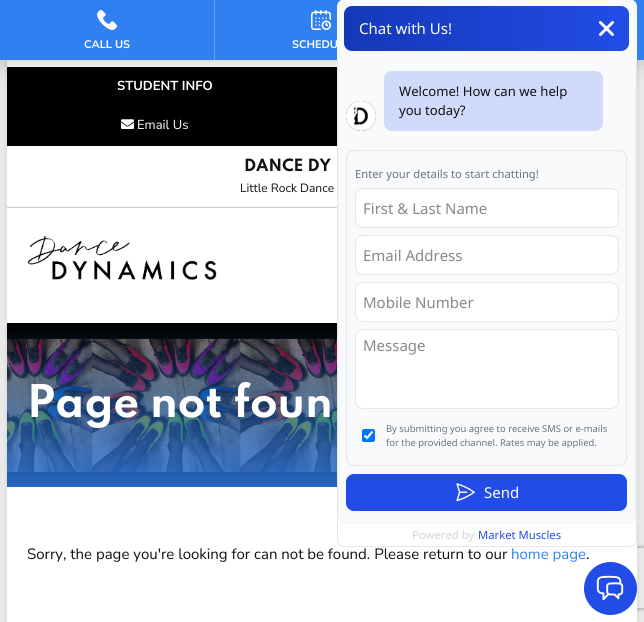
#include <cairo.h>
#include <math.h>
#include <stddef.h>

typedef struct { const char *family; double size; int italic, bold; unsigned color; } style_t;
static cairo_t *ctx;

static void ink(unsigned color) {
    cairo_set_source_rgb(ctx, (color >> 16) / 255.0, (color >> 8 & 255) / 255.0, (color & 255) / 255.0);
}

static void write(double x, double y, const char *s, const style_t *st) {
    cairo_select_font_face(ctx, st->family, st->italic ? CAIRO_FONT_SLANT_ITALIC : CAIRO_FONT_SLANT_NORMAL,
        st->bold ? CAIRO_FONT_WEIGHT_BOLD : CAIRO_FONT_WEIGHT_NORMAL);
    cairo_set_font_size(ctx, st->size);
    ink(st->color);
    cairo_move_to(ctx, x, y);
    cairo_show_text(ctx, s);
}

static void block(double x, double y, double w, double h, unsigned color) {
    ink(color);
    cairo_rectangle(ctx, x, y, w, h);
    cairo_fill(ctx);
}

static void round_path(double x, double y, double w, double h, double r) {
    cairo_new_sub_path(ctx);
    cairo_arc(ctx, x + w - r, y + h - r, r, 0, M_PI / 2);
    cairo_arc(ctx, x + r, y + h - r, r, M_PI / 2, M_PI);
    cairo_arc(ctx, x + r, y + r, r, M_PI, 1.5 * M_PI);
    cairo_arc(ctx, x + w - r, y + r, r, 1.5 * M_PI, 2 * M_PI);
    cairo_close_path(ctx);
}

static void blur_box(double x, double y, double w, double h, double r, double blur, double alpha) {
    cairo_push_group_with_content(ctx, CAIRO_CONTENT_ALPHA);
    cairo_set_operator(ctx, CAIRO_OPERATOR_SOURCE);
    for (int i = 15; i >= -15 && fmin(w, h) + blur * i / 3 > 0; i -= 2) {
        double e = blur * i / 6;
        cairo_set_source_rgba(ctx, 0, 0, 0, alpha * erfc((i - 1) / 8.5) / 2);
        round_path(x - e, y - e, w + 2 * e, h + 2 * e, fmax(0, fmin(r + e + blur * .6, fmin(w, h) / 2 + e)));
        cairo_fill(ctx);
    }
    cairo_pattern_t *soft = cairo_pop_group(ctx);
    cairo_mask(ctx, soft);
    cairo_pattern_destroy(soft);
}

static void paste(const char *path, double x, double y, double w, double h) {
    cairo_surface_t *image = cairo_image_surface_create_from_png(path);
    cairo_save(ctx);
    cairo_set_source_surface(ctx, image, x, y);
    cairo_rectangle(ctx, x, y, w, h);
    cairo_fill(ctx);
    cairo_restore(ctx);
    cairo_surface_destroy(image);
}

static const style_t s1 = {"Nunito Sans", 11, 0, 1, 0xffffff};
static const style_t s2 = {"Noto Sans", 15, 0, 0, 0xffffff};
static const style_t s3 = {"Noto Sans", 13.1, 0, 0, 0x111111};
static const style_t s4 = {"Noto Sans", 11.25, 0, 0, 0x6a7282};
static const style_t s5 = {"Noto Sans", 15, 0, 0, 0x888888};
static const style_t s6 = {"Noto Sans", 9.4, 0, 0, 0x6a7282};
static const style_t s7 = {"Noto Sans", 11.25, 0, 0, 0xd1d5dc};
static const style_t s8 = {"Noto Sans", 11.25, 0, 0, 0x224ce7};
static const style_t s9 = {"Nunito Sans", 13, 0, 1, 0xffffff};
static const style_t s10 = {"Nunito Sans", 13, 0, 0, 0xffffff};
static const style_t s11 = {"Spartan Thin", 15, 0, 1, 0x111111};
static const style_t s12 = {"Nunito Sans", 12, 0, 0, 0x111111};
static const style_t s13 = {"Spartan Thin", 40, 0, 1, 0xffffff};
static const style_t s14 = {"Nunito Sans", 15, 0, 0, 0x111111};
static const style_t s15 = {"Nunito Sans", 15, 0, 0, 0x3080f1};

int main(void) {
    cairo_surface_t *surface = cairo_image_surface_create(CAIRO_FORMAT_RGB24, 644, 622);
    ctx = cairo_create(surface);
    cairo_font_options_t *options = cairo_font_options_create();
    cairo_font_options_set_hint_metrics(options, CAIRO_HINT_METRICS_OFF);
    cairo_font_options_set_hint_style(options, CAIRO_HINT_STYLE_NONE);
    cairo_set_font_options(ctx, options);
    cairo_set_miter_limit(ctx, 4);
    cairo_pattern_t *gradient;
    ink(0xffffff);
    cairo_paint(ctx);
    ink(0x000000);
    blur_box(7, 7, 630, 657, 0, 14, 0.24);
    cairo_save(ctx);
    cairo_set_fill_rule(ctx, CAIRO_FILL_RULE_EVEN_ODD);
    cairo_new_path(ctx);
    cairo_move_to(ctx, 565, 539);
    cairo_line_to(ctx, 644, 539);
    cairo_line_to(ctx, 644, 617);
    cairo_line_to(ctx, 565, 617);
    cairo_close_path(ctx);
    cairo_move_to(ctx, 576, 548);
    cairo_line_to(ctx, 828, 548);
    cairo_curve_to(ctx, 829, 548, 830, 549, 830, 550);
    cairo_line_to(ctx, 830, 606);
    cairo_curve_to(ctx, 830, 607, 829, 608, 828, 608);
    cairo_line_to(ctx, 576, 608);
    cairo_curve_to(ctx, 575, 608, 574, 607, 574, 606);
    cairo_line_to(ctx, 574, 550);
    cairo_curve_to(ctx, 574, 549, 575, 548, 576, 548);
    cairo_close_path(ctx);
    cairo_clip(ctx);
    ink(0x808080);
    blur_box(574, 548, 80, 60, 2, 2.5, 1);
    cairo_restore(ctx);
    block(7, 60, 630, 562, 0xffffff);
    block(7, 67, 330, 79, 0x000000);
    ink(0x000000);
    blur_box(0, 0, 644, 60, 0, 14, 0.24);
    block(0, 0, 644, 60, 0x3080f1);
    write(292, 48, "SCHEDU", &s1);
    ink(0xf9fafb);
    cairo_new_path(ctx);
    cairo_move_to(ctx, 345, -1);
    cairo_line_to(ctx, 629, -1);
    cairo_curve_to(ctx, 633.5, -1, 637, 2.5, 637, 7);
    cairo_line_to(ctx, 637, 59);
    cairo_line_to(ctx, 337, 59);
    cairo_line_to(ctx, 337, 7);
    cairo_curve_to(ctx, 337, 2.5, 340.5, -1, 345, -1);
    cairo_close_path(ctx);
    cairo_fill(ctx);
    gradient = cairo_pattern_create_linear(344, 29, 629, 28);
    cairo_pattern_add_color_stop_rgba(gradient, 0, 0.078, 0.22, 0.722, 1);
    cairo_pattern_add_color_stop_rgba(gradient, 1, 0.133, 0.298, 0.906, 1);
    cairo_set_source(ctx, gradient);
    cairo_pattern_destroy(gradient);
    round_path(344, 6, 285, 45, 8);
    cairo_fill(ctx);
    write(359, 34, "Chat with Us!", &s2);
    paste("pic1.png", 599, 21, 15, 15);
    cairo_new_path(ctx);
    cairo_move_to(ctx, 338, 59);
    cairo_line_to(ctx, 636, 59);
    cairo_line_to(ctx, 636, 539);
    cairo_curve_to(ctx, 636, 543, 633, 546, 629, 546);
    cairo_line_to(ctx, 345, 546);
    cairo_curve_to(ctx, 341, 546, 338, 543, 338, 539);
    cairo_close_path(ctx);
    cairo_fill(ctx);
    ink(0xe5e7eb);
    cairo_set_fill_rule(ctx, CAIRO_FILL_RULE_EVEN_ODD);
    cairo_new_path(ctx);
    cairo_move_to(ctx, 337, 59);
    cairo_line_to(ctx, 637, 59);
    cairo_line_to(ctx, 637, 540);
    cairo_curve_to(ctx, 637, 544, 634, 547, 630, 547);
    cairo_line_to(ctx, 344, 547);
    cairo_curve_to(ctx, 340, 547, 337, 544, 337, 540);
    cairo_close_path(ctx);
    cairo_move_to(ctx, 338, 59);
    cairo_line_to(ctx, 636, 59);
    cairo_line_to(ctx, 636, 540);
    cairo_curve_to(ctx, 636, 543, 633, 546, 630, 546);
    cairo_line_to(ctx, 344, 546);
    cairo_curve_to(ctx, 341, 546, 338, 543, 338, 540);
    cairo_close_path(ctx);
    cairo_fill(ctx);
    ink(0xf9fafb);
    round_path(338.5, 59.5, 297, 464, 7.5);
    cairo_fill_preserve(ctx);
    ink(0xf3f4f6);
    cairo_set_line_width(ctx, 1);
    cairo_stroke(ctx);
    ink(0x4a5565);
    cairo_arc(ctx, 361, 116, 15, 0, 2 * M_PI);
    cairo_fill(ctx);
    paste("pic2.png", 346, 101, 30, 30);
    ink(0xd1dafa);
    round_path(384, 71, 219, 60, 8);
    cairo_fill(ctx);
    write(399, 96, "Welcome! How can we help", &s3);
    write(399, 115, "you today?", &s3);
    round_path(346.5, 150.5, 280, 315, 7.5);
    ink(0xe5e7eb);
    cairo_stroke(ctx);
    write(355, 178, "Enter your details to start chatting!", &s4);
    ink(0xffffff);
    round_path(355.5, 188.5, 263, 39, 7.5);
    cairo_fill_preserve(ctx);
    ink(0xe5e7eb);
    cairo_stroke(ctx);
    write(363, 214, "First & Last Name", &s5);
    ink(0xffffff);
    round_path(355.5, 235.5, 263, 39, 7.5);
    cairo_fill_preserve(ctx);
    ink(0xe5e7eb);
    cairo_stroke(ctx);
    write(363, 261, "Email Address", &s5);
    ink(0xffffff);
    round_path(355.5, 282.5, 263, 39, 7.5);
    cairo_fill_preserve(ctx);
    ink(0xe5e7eb);
    cairo_stroke(ctx);
    write(363, 308, "Mobile Number", &s5);
    ink(0xffffff);
    round_path(355.5, 329.5, 263, 79, 7.5);
    cairo_fill_preserve(ctx);
    ink(0xe5e7eb);
    cairo_stroke(ctx);
    write(363, 351, "Message", &s5);
    ink(0x0075ff);
    round_path(362, 429, 13, 13, 2);
    cairo_fill(ctx);
    cairo_new_path(ctx);
    cairo_move_to(ctx, 364.5, 435.5);
    cairo_line_to(ctx, 367, 438);
    cairo_line_to(ctx, 372.5, 431.5);
    ink(0xffffff);
    cairo_set_line_width(ctx, 2.1);
    cairo_stroke(ctx);
    write(386, 432, "By submitting you agree to receive SMS or e-mails", &s6);
    write(386, 446, "for the provided channel. Rates may be applied.", &s6);
    ink(0x224ce7);
    round_path(346, 474, 281, 37, 8);
    cairo_fill(ctx);
    paste("pic3.png", 456, 483, 19, 19);
    write(484, 498, "Send", &s2);
    write(412, 539, "Powered by", &s7);
    write(478, 539, "Market Muscles", &s8);
    cairo_new_path(ctx);
    cairo_arc(ctx, 610.5, 588.5, 26.5, 0, 2 * M_PI);
    cairo_fill(ctx);
    paste("pic4.png", 596, 575, 28, 26);
    block(214, 0, 1, 60, 0x64a0f5);
    paste("pic5.png", 97, 10, 20, 20);
    write(84, 48, "CALL US", &s1);
    paste("pic6.png", 311, 10, 20, 20);
    write(117, 90, "STUDENT INFO", &s9);
    paste("pic7.png", 121, 119, 13, 10);
    write(137, 129, "Email Us", &s10);
    block(7, 207, 330, 1, 0xcccccc);
    write(244, 171, "DANCE DY", &s11);
    write(240, 192, "Little Rock Dance", &s12);
    paste("pic8.png", 27, 235, 190, 45);
    paste("pic9.png", 7, 323, 330, 164);
    write(27, 417, "Page not foun", &s13);
    write(27, 559, "Sorry, the page you're looking for can not be found. Please return to our", &s14);
    write(511, 559, "home page", &s15);
    write(586, 559, ".", &s14);
    cairo_surface_write_to_png(surface, "screenshot.png");
    cairo_font_options_destroy(options);
    cairo_destroy(ctx);
    cairo_surface_destroy(surface);
    return 0;
}
